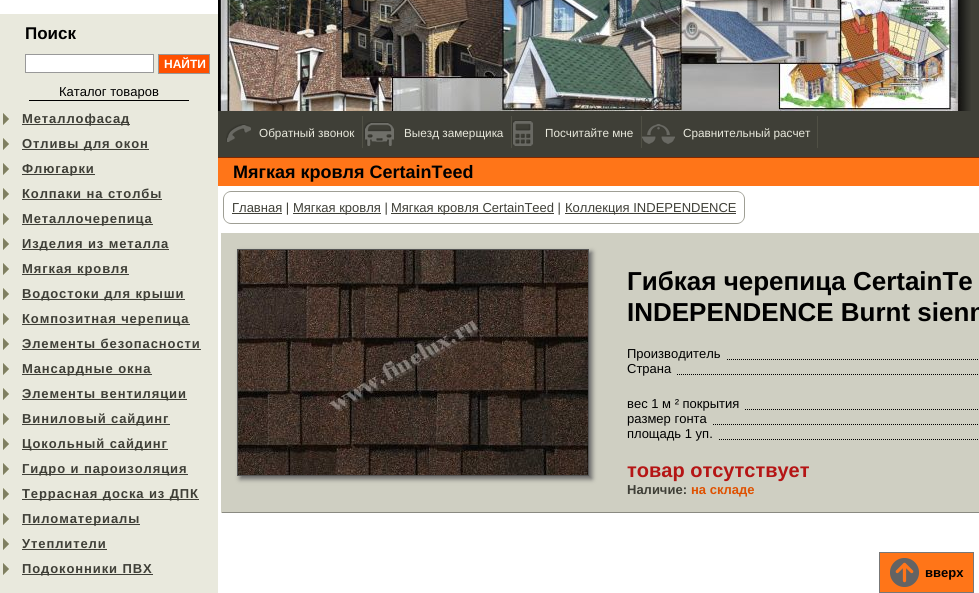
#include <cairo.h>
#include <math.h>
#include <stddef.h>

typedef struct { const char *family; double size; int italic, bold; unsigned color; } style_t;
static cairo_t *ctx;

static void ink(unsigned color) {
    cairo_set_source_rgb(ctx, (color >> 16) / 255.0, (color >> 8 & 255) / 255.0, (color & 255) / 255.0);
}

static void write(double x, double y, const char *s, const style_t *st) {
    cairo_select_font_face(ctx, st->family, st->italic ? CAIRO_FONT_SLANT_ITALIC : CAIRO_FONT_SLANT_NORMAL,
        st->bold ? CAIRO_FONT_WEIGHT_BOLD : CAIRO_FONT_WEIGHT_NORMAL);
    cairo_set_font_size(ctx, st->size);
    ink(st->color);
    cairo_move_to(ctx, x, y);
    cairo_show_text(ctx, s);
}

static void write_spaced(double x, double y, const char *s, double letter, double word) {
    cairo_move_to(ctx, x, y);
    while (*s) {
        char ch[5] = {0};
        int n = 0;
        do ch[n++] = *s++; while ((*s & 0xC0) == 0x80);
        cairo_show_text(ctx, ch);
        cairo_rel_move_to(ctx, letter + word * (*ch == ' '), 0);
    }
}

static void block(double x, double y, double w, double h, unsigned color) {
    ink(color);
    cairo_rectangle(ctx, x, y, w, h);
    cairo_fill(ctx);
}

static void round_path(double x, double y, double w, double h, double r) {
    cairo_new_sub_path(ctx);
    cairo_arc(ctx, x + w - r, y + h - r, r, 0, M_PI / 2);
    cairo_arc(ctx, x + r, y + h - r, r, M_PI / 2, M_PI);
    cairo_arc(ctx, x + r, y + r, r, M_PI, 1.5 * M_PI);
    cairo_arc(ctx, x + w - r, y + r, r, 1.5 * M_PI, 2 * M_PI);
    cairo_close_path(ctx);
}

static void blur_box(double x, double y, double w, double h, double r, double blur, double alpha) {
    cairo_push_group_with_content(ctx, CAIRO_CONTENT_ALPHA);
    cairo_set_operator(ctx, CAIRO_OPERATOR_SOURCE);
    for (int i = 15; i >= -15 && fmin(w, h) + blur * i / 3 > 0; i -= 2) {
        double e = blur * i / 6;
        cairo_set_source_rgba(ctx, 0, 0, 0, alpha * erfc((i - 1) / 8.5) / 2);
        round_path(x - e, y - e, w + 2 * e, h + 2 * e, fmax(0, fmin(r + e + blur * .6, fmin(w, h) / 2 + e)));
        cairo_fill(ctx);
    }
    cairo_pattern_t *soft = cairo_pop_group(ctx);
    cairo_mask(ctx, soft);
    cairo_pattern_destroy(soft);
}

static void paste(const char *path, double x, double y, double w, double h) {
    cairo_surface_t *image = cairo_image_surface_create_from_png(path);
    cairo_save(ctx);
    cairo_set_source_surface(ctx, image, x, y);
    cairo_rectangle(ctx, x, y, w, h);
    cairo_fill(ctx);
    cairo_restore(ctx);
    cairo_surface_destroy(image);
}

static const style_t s1 = {"Liberation Sans", 17, 0, 1, 0x000000};
static const style_t s2 = {"Liberation Sans", 12, 0, 1, 0xffffff};
static const style_t s3 = {"Liberation Sans", 13, 0, 0, 0x000000};
static const style_t s4 = {"Liberation Sans", 11.75, 0, 0, 0xe9e9dd};
static const style_t s5 = {"Liberation Sans", 18, 0, 1, 0x000000};
static const style_t s6 = {"Liberation Sans", 13, 0, 0, 0x3f3f37};
static const style_t s7 = {"Liberation Sans", 26, 0, 1, 0x000000};
static const style_t s8 = {"Liberation Sans", 20, 0, 1, 0xb51515};
static const style_t s9 = {"Liberation Sans", 13, 0, 1, 0x3f3f37};
static const style_t s10 = {"Liberation Sans", 13, 0, 1, 0xdf5100};
static const style_t s11 = {"Liberation Sans", 13, 0, 1, 0x000000};

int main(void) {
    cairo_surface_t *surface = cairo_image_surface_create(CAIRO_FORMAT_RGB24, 979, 593);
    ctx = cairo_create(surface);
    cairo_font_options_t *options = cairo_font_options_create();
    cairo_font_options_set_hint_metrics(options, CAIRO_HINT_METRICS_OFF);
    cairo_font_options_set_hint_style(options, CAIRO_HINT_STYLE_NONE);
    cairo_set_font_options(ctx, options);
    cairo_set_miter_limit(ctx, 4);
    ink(0xe9e9dd);
    cairo_paint(ctx);
    block(0, 0, 218, 14, 0xffffff);
    write(25, 39, "Поиск", &s1);
    ink(0xffffff);
    cairo_rectangle(ctx, 25.5, 54.5, 128, 18);
    cairo_fill_preserve(ctx);
    ink(0x999999);
    cairo_set_line_width(ctx, 1);
    cairo_stroke(ctx);
    ink(0xff5000);
    cairo_rectangle(ctx, 158.5, 54.5, 51, 19);
    cairo_fill_preserve(ctx);
    ink(0x999999);
    cairo_stroke(ctx);
    write(164, 68, "НАЙТИ", &s2);
    write(59, 96, "Каталог товаров", &s3);
    block(29, 100, 160, 1, 0x000000);
    paste("pic1.png", 3, 113, 6, 12);
    block(22, 124, 108, 1, 0x3f3f37);
    cairo_select_font_face(ctx, "Liberation Sans", CAIRO_FONT_SLANT_NORMAL, CAIRO_FONT_WEIGHT_BOLD);
    write_spaced(22, 123, "Металлофасад", 0.9, 0);
    paste("pic1.png", 3, 138, 6, 12);
    block(22, 149, 127, 1, 0x3f3f37);
    write_spaced(22, 148, "Отливы для окон", 0.9, 0);
    paste("pic1.png", 3, 163, 6, 12);
    block(22, 174, 73, 1, 0x3f3f37);
    write_spaced(22, 173, "Флюгарки", 0.9, 0);
    paste("pic1.png", 3, 188, 6, 12);
    write_spaced(22, 198, "Колпаки на столбы", 0.9, 0);
    block(22, 199, 140, 1, 0x3f3f37);
    paste("pic1.png", 3, 213, 6, 12);
    block(22, 224, 131, 1, 0x3f3f37);
    write_spaced(22, 223, "Металлочерепица", 0.9, 0);
    paste("pic1.png", 3, 238, 6, 12);
    block(22, 249, 147, 1, 0x3f3f37);
    write_spaced(22, 248, "Изделия из металла", 0.9, 0);
    paste("pic1.png", 3, 263, 6, 12);
    block(22, 274, 107, 1, 0x3f3f37);
    write_spaced(22, 273, "Мягкая кровля", 0.9, 0);
    paste("pic1.png", 3, 288, 6, 12);
    block(22, 299, 163, 1, 0x3f3f37);
    write_spaced(22, 298, "Водостоки для крыши", 0.9, 0);
    paste("pic1.png", 3, 313, 6, 12);
    block(22, 324, 168, 1, 0x3f3f37);
    write_spaced(22, 323, "Композитная черепица", 0.9, 0);
    paste("pic1.png", 3, 338, 6, 12);
    write_spaced(22, 348, "Элементы безопасности", 0.9, 0);
    block(22, 349, 179, 1, 0x3f3f37);
    paste("pic1.png", 3, 363, 6, 12);
    block(22, 374, 130, 1, 0x3f3f37);
    write_spaced(22, 373, "Мансардные окна", 0.9, 0);
    paste("pic1.png", 3, 388, 6, 12);
    block(22, 399, 165, 1, 0x3f3f37);
    write_spaced(22, 398, "Элементы вентиляции", 0.9, 0);
    paste("pic1.png", 3, 413, 6, 12);
    block(22, 424, 148, 1, 0x3f3f37);
    write_spaced(22, 423, "Виниловый сайдинг", 0.9, 0);
    paste("pic1.png", 3, 438, 6, 12);
    block(22, 449, 146, 1, 0x3f3f37);
    write_spaced(22, 448, "Цокольный сайдинг", 0.9, 0);
    paste("pic1.png", 3, 463, 6, 12);
    block(22, 474, 166, 1, 0x3f3f37);
    write_spaced(22, 473, "Гидро и пароизоляция", 0.9, 0);
    paste("pic1.png", 3, 488, 6, 12);
    block(22, 499, 177, 1, 0x3f3f37);
    write_spaced(22, 498, "Террасная доска из ДПК", 0.9, 0);
    paste("pic1.png", 3, 513, 6, 12);
    block(22, 524, 118, 1, 0x3f3f37);
    write_spaced(22, 523, "Пиломатериалы", 0.9, 0);
    paste("pic1.png", 3, 538, 6, 12);
    write_spaced(22, 548, "Утеплители", 0.9, 0);
    block(22, 549, 85, 1, 0x3f3f37);
    paste("pic1.png", 3, 563, 6, 12);
    block(22, 574, 131, 1, 0x3f3f37);
    write_spaced(22, 573, "Подоконники ПВХ", 0.9, 0);
    block(218, 186, 761, 407, 0xffffff);
    block(218, 0, 761, 157, 0x3f3f37);
    block(362, 116, 1, 32, 0x505045);
    paste("pic2.png", 226, 124, 25, 18);
    write(259, 137, "Обратный звонок", &s4);
    block(511, 116, 1, 32, 0x505045);
    paste("pic3.png", 364, 122, 30, 24);
    write(404, 137, "Выезд замерщика", &s4);
    block(641, 116, 1, 32, 0x505045);
    paste("pic4.png", 512, 120, 21, 26);
    write(545, 137, "Посчитайте мне", &s4);
    block(817, 116, 1, 32, 0x505045);
    paste("pic5.png", 642, 124, 33, 20);
    write(683, 137, "Сравнительный расчет", &s4);
    paste("pic6.png", 218, 0, 753, 111);
    paste("pic7.png", 953, 0, 18, 111);
    block(218, 158, 761, 28, 0xff7518);
    block(218, 157, 761, 1, 0x7f2800);
    write(233, 178, "Мягкая кровля CertainTeed", &s5);
    ink(0x9f9f95);
    cairo_set_fill_rule(ctx, CAIRO_FILL_RULE_EVEN_ODD);
    cairo_new_path(ctx);
    cairo_move_to(ctx, 231, 191);
    cairo_line_to(ctx, 282, 191);
    cairo_line_to(ctx, 282, 224);
    cairo_line_to(ctx, 231, 224);
    cairo_curve_to(ctx, 227, 224, 223, 220, 223, 216);
    cairo_line_to(ctx, 223, 199);
    cairo_curve_to(ctx, 223, 195, 227, 191, 231, 191);
    cairo_close_path(ctx);
    cairo_move_to(ctx, 231, 192);
    cairo_line_to(ctx, 282, 192);
    cairo_line_to(ctx, 282, 223);
    cairo_line_to(ctx, 231, 223);
    cairo_curve_to(ctx, 227, 223, 224, 220, 224, 216);
    cairo_line_to(ctx, 224, 199);
    cairo_curve_to(ctx, 224, 195, 227, 192, 231, 192);
    cairo_close_path(ctx);
    cairo_fill(ctx);
    block(232, 213, 50, 1, 0x3f3f37);
    write(232, 212, "Главная |", &s6);
    block(282, 191, 283, 1, 0x9f9f95);
    block(282, 223, 283, 1, 0x9f9f95);
    block(293, 213, 88, 1, 0x3f3f37);
    write(293, 212, "Мягкая кровля |", &s6);
    block(391, 213, 163, 1, 0x3f3f37);
    write(391, 212, "Мягкая кровля CertainTeed |", &s6);
    ink(0x9f9f95);
    cairo_new_path(ctx);
    cairo_move_to(ctx, 565, 191);
    cairo_line_to(ctx, 737, 191);
    cairo_curve_to(ctx, 741, 191, 745, 195, 745, 199);
    cairo_line_to(ctx, 745, 216);
    cairo_curve_to(ctx, 745, 220, 741, 224, 737, 224);
    cairo_line_to(ctx, 565, 224);
    cairo_close_path(ctx);
    cairo_move_to(ctx, 565, 192);
    cairo_line_to(ctx, 737, 192);
    cairo_curve_to(ctx, 741, 192, 744, 195, 744, 199);
    cairo_line_to(ctx, 744, 216);
    cairo_curve_to(ctx, 744, 220, 741, 223, 737, 223);
    cairo_line_to(ctx, 565, 223);
    cairo_close_path(ctx);
    cairo_fill(ctx);
    block(565, 213, 171, 1, 0x3f3f37);
    write(565, 212, "Коллекция INDEPENDENCE", &s6);
    block(222, 233, 757, 279, 0xcfcfc2);
    block(221, 512, 758, 1, 0x8a8a81);
    block(221, 233, 1, 280, 0xcfcfc2);
    ink(0x666666);
    blur_box(240, 252, 352, 227, 0, 2.5, 1);
    cairo_rectangle(ctx, 237.5, 249.5, 351, 226);
    ink(0x555555);
    cairo_stroke(ctx);
    paste("pic8.png", 238, 250, 350, 225);
    write(627, 290, "Гибкая черепица CertainTe", &s7);
    write(627, 321, "INDEPENDENCE Burnt sienn", &s7);
    paste("pic9.png", 727, 359, 251, 1);
    write(627, 358, "Производитель", &s3);
    paste("pic10.png", 677, 374, 301, 1);
    write(627, 373, "Страна", &s3);
    paste("pic11.png", 745, 409, 233, 1);
    write(627, 408, "вес 1 м ² покрытия", &s3);
    paste("pic12.png", 713, 424, 265, 1);
    write(627, 423, "размер гонта", &s3);
    paste("pic13.png", 719, 439, 259, 1);
    write(627, 438, "площадь 1 уп.", &s3);
    write(627, 477, "товар отсутствует", &s8);
    write(627, 494, "Наличие:", &s9);
    write(691, 494, "на складе", &s10);
    block(880, 553, 93, 39, 0xff7518);
    paste("pic14.png", 890, 558, 29, 29);
    cairo_rectangle(ctx, 879.5, 552.5, 94, 40);
    ink(0x777777);
    cairo_stroke(ctx);
    write(925, 577, "вверх", &s11);
    cairo_surface_write_to_png(surface, "screenshot.png");
    cairo_font_options_destroy(options);
    cairo_destroy(ctx);
    cairo_surface_destroy(surface);
    return 0;
}
